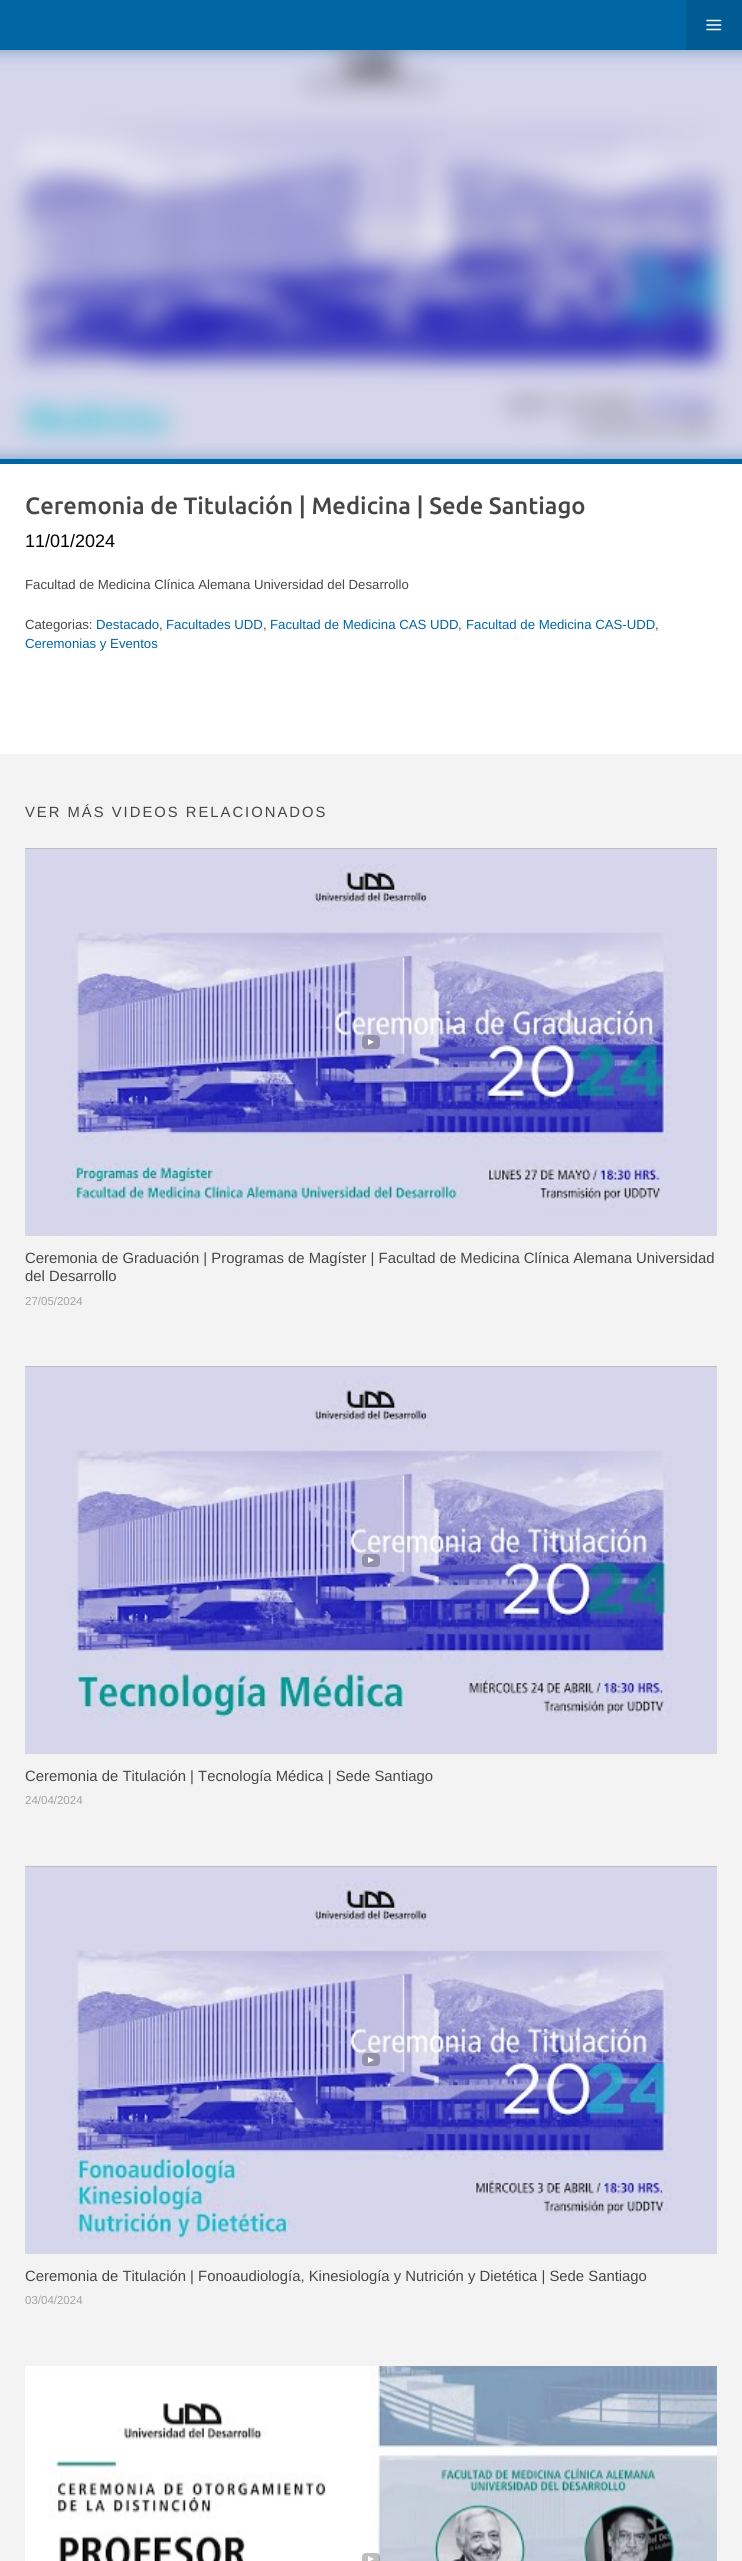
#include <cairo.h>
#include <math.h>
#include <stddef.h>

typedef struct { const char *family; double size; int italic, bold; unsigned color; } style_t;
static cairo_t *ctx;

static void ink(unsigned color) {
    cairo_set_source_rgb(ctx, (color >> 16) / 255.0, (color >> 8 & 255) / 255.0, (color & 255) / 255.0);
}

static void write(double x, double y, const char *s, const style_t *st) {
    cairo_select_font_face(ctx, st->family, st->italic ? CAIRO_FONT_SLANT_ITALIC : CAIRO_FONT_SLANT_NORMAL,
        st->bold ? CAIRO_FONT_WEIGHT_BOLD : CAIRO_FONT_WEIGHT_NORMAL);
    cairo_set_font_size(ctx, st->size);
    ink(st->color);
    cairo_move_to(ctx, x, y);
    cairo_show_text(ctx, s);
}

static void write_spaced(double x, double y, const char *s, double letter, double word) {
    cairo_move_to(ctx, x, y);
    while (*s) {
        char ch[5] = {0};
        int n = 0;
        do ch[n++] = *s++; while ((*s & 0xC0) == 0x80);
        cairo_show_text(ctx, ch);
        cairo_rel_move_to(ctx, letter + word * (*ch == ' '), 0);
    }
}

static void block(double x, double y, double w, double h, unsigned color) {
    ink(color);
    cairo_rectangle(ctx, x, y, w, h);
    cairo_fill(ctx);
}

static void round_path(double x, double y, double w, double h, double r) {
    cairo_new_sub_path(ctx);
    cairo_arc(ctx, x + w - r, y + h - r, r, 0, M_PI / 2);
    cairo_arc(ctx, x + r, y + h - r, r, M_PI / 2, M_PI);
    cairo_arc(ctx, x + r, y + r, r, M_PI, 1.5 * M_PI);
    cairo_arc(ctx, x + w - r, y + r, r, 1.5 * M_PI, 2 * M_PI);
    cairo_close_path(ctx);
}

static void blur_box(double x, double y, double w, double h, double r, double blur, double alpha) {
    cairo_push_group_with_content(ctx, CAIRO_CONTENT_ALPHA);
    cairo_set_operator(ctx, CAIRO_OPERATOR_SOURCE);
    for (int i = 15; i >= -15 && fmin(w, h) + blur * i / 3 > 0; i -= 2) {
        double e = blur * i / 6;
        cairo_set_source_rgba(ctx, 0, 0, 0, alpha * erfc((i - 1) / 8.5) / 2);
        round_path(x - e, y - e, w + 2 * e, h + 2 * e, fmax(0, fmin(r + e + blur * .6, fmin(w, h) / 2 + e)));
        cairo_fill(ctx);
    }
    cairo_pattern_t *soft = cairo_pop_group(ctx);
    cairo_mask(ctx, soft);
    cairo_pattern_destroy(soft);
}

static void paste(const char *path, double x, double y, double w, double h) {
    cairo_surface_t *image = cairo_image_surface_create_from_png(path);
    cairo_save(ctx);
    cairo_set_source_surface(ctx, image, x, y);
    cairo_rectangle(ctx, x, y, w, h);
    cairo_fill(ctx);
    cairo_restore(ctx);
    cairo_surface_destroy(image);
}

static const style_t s1 = {"Ubuntu Medium", 23.75, 0, 0, 0x464646};
static const style_t s2 = {"Liberation Sans", 18, 0, 0, 0x000000};
static const style_t s3 = {"Liberation Sans", 13.2, 0, 0, 0x464646};
static const style_t s4 = {"Liberation Sans", 13.2, 0, 0, 0x0065a3};
static const style_t s5 = {"Liberation Sans", 14.85, 0, 0, 0x464646};
static const style_t s6 = {"Liberation Sans", 11.5, 0, 0, 0xa3a3a3};

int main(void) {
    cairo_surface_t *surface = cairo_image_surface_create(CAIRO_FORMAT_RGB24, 742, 2561);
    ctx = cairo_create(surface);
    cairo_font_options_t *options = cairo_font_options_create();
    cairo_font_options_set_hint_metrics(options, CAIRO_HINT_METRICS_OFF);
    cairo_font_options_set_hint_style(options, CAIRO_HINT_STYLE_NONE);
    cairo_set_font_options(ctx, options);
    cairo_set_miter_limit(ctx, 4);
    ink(0xffffff);
    cairo_paint(ctx);
    block(0, 459, 742, 5, 0x0065a3);
    cairo_save(ctx);
    cairo_rectangle(ctx, 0, 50, 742, 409);
    cairo_clip(ctx);
    ink(0x00558a);
    blur_box(-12, 41, 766, 428, 0, 4, 1);
    cairo_restore(ctx);
    block(0, 0, 686, 50, 0x0065a3);
    block(686, 0, 56, 50, 0x005b93);
    paste("pic1.png", 706, 19, 16, 12);
    paste("pic2.png", 0, 50, 742, 409);
    write(25, 514, "Ceremonia de Titulación | Medicina | Sede Santiago", &s1);
    write(25, 547, "11/01/2024", &s2);
    write(25, 589, "Facultad de Medicina Clínica Alemana Universidad del Desarrollo", &s3);
    write(25, 629, "Categorias:", &s3);
    write(96, 629, "Destacado", &s4);
    write(159, 629, ",", &s3);
    write(166, 629, "Facultades UDD", &s4);
    write(263, 629, ",", &s3);
    write(270, 629, "Facultad de Medicina CAS UDD", &s4);
    write(458, 629, ",", &s3);
    write(466, 629, "Facultad de Medicina CAS-UDD", &s4);
    write(655, 629, ",", &s3);
    write(25, 648, "Ceremonias y Eventos", &s4);
    block(0, 754, 742, 1807, 0xf4f3f3);
    cairo_set_font_size(ctx, 14.8);
    ink(0x464646);
    write_spaced(25, 817, "VER MÁS VIDEOS RELACIONADOS", 2, 0);
    paste("pic3.png", 25, 848, 692, 388);
    cairo_set_source_rgba(ctx, 0, 0, 0, 0.25);
    cairo_new_path(ctx);
    cairo_move_to(ctx, 365.5, 1035);
    cairo_line_to(ctx, 376.5, 1035);
    cairo_curve_to(ctx, 378.5, 1035, 380, 1037, 380, 1039);
    cairo_line_to(ctx, 380, 1045);
    cairo_curve_to(ctx, 380, 1047, 378.5, 1049, 376.5, 1049);
    cairo_line_to(ctx, 365.5, 1049);
    cairo_curve_to(ctx, 363.5, 1049, 362, 1047, 362, 1045);
    cairo_line_to(ctx, 362, 1039);
    cairo_curve_to(ctx, 362, 1037, 363.5, 1035, 365.5, 1035);
    cairo_close_path(ctx);
    cairo_fill(ctx);
    ink(0xffffff);
    cairo_new_path(ctx);
    cairo_move_to(ctx, 368, 1045);
    cairo_line_to(ctx, 368, 1039);
    cairo_line_to(ctx, 374, 1042);
    cairo_close_path(ctx);
    cairo_fill(ctx);
    write(25, 1263, "Ceremonia de Graduación | Programas de Magíster | Facultad de Medicina Clínica Alemana Universidad", &s5);
    write(25, 1281, "del Desarrollo", &s5);
    write(25, 1305, "27/05/2024", &s6);
    paste("pic4.png", 25, 1366, 692, 388);
    cairo_set_source_rgba(ctx, 0, 0, 0, 0.25);
    round_path(362, 1554, 18, 13, 4);
    cairo_fill(ctx);
    ink(0xffffff);
    cairo_new_path(ctx);
    cairo_move_to(ctx, 368, 1563);
    cairo_line_to(ctx, 368, 1557);
    cairo_line_to(ctx, 374, 1560);
    cairo_close_path(ctx);
    cairo_fill(ctx);
    write(25, 1781, "Ceremonia de Titulación | Tecnología Médica | Sede Santiago", &s5);
    write(25, 1804, "24/04/2024", &s6);
    paste("pic5.png", 25, 1866, 692, 388);
    cairo_set_source_rgba(ctx, 0, 0, 0, 0.25);
    round_path(362, 2053, 18, 13, 4);
    cairo_fill(ctx);
    ink(0xffffff);
    cairo_new_path(ctx);
    cairo_move_to(ctx, 368, 2063);
    cairo_line_to(ctx, 368, 2057);
    cairo_line_to(ctx, 374, 2060);
    cairo_close_path(ctx);
    cairo_fill(ctx);
    write(25, 2281, "Ceremonia de Titulación | Fonoaudiología, Kinesiología y Nutrición y Dietética | Sede Santiago", &s5);
    write(25, 2304, "03/04/2024", &s6);
    paste("pic6.png", 25, 2366, 692, 195);
    cairo_set_source_rgba(ctx, 0, 0, 0, 0.25);
    round_path(362, 2553, 18, 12, 4);
    cairo_fill(ctx);
    ink(0xffffff);
    cairo_new_path(ctx);
    cairo_move_to(ctx, 368, 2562);
    cairo_line_to(ctx, 368, 2556);
    cairo_line_to(ctx, 374, 2559);
    cairo_close_path(ctx);
    cairo_fill(ctx);
    cairo_surface_write_to_png(surface, "screenshot.png");
    cairo_font_options_destroy(options);
    cairo_destroy(ctx);
    cairo_surface_destroy(surface);
    return 0;
}
